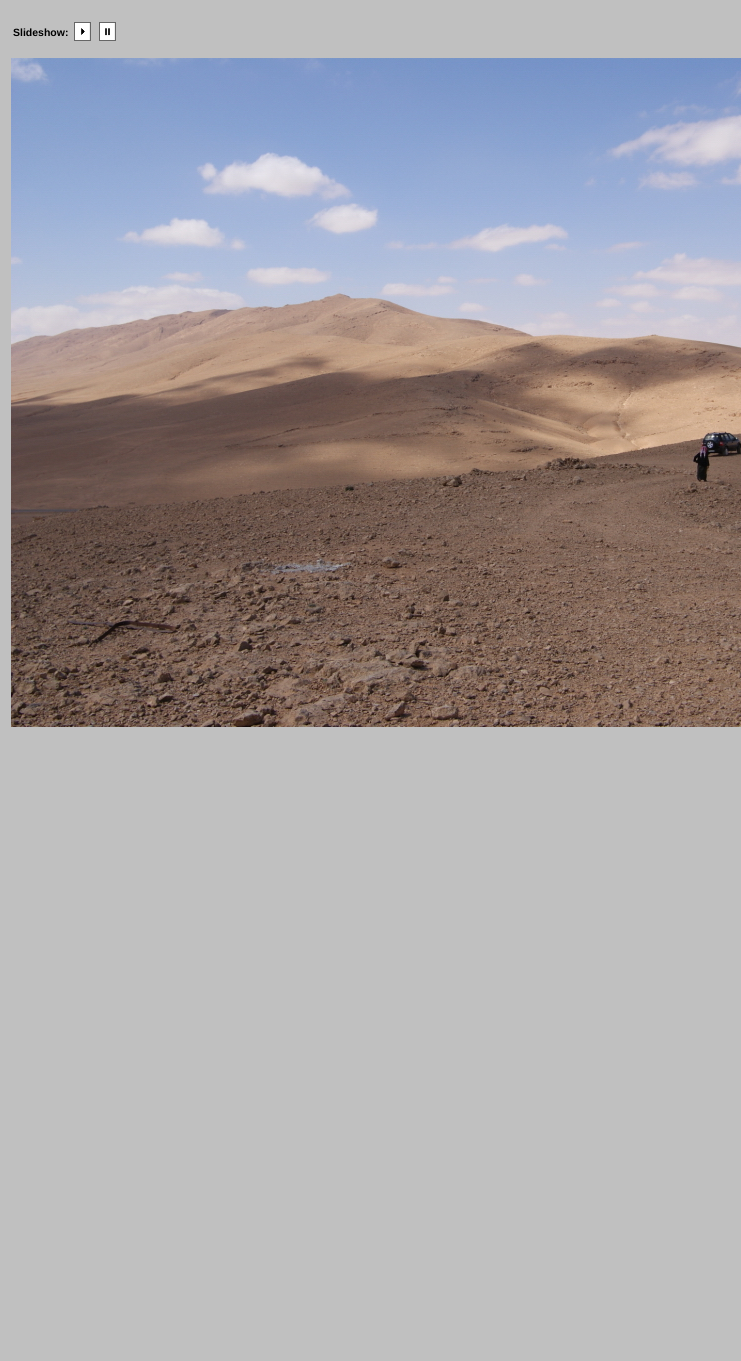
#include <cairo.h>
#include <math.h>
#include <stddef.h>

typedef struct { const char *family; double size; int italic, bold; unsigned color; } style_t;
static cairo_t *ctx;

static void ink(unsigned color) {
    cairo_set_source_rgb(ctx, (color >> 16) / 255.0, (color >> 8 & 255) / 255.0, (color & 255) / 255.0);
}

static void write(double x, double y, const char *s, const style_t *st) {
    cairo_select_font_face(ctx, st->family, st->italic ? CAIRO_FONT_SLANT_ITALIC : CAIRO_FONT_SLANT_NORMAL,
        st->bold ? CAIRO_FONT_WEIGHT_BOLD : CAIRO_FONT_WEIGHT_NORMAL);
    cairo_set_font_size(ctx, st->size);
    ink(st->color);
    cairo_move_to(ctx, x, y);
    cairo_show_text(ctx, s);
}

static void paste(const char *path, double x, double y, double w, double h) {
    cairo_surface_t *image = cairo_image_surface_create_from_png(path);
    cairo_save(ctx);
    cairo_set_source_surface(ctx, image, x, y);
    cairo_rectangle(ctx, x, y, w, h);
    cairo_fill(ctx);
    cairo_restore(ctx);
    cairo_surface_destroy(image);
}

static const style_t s1 = {"Liberation Sans", 10.5, 0, 1, 0x000000};

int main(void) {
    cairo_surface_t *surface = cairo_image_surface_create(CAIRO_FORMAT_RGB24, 741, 1361);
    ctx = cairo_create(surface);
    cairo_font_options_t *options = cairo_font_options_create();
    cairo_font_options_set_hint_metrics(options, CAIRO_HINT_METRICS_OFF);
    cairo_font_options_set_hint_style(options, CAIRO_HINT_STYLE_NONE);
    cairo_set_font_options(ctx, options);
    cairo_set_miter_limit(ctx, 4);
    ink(0xc0c0c0);
    cairo_paint(ctx);
    write(13, 36, "Slideshow:", &s1);
    paste("pic1.png", 74, 22, 17, 19);
    paste("pic2.png", 99, 22, 17, 19);
    paste("pic3.png", 11, 58, 730, 669);
    cairo_surface_write_to_png(surface, "screenshot.png");
    cairo_font_options_destroy(options);
    cairo_destroy(ctx);
    cairo_surface_destroy(surface);
    return 0;
}
